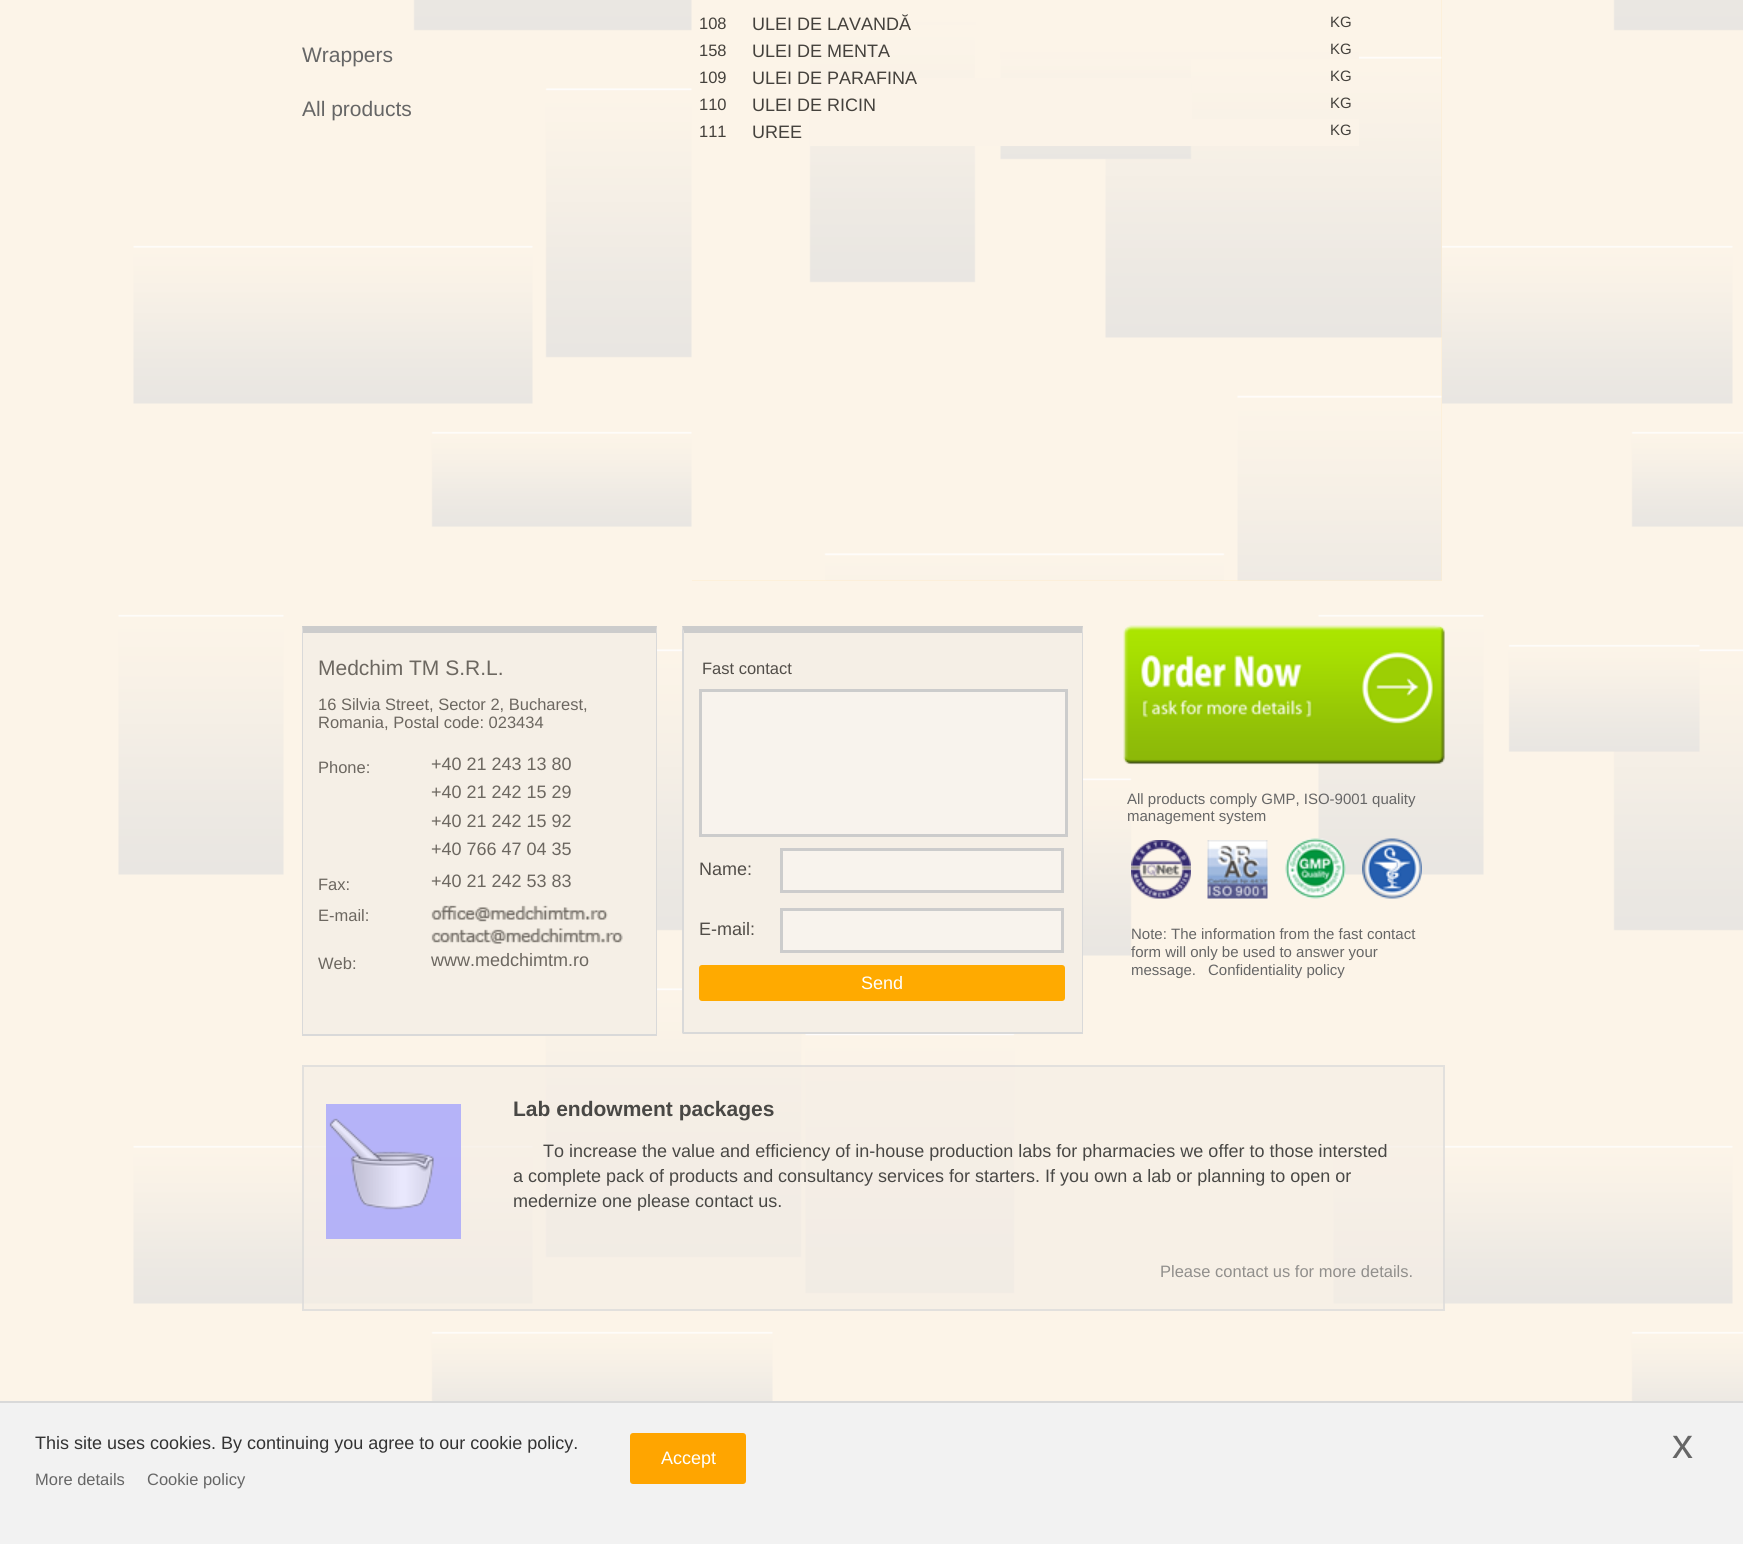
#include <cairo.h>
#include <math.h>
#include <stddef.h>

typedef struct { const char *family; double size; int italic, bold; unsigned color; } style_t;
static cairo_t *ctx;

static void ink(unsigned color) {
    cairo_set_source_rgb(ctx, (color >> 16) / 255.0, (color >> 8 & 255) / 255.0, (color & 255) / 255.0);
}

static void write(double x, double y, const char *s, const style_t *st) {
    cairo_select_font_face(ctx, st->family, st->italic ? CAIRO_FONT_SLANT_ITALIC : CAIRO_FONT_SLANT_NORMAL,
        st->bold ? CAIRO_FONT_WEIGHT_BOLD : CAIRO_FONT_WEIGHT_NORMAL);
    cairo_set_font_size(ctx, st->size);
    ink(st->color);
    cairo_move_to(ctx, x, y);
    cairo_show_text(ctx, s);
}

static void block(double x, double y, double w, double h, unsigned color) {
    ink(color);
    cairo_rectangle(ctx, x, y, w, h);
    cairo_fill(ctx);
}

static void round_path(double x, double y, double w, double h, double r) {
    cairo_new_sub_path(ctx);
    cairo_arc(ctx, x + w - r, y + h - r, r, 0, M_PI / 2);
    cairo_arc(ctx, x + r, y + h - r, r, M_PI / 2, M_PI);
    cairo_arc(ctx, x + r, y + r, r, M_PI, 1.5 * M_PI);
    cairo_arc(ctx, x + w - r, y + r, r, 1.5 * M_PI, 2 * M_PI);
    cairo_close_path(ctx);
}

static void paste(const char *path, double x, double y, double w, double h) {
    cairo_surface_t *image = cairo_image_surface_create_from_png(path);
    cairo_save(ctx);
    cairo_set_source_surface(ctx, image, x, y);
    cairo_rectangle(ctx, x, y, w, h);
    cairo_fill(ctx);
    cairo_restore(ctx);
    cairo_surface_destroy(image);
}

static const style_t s1 = {"Liberation Sans", 21, 0, 0, 0x666666};
static const style_t s2 = {"Liberation Sans", 16.5, 0, 0, 0x44413c};
static const style_t s3 = {"Liberation Sans", 18, 0, 0, 0x44413c};
static const style_t s4 = {"Liberation Sans", 15, 0, 0, 0x44413c};
static const style_t s5 = {"Liberation Sans", 21, 0, 0, 0x6c6760};
static const style_t s6 = {"Liberation Sans", 16.5, 0, 0, 0x6c6760};
static const style_t s7 = {"Liberation Sans", 18, 0, 0, 0x6c6760};
static const style_t s8 = {"Liberation Sans", 16.5, 0, 0, 0x514d48};
static const style_t s9 = {"Liberation Sans", 18, 0, 0, 0x514d48};
static const style_t s10 = {"Liberation Sans", 18, 0, 0, 0xffffff};
static const style_t s11 = {"Liberation Sans", 15, 0, 0, 0x666666};
static const style_t s12 = {"Liberation Sans", 21, 0, 1, 0x494845};
static const style_t s13 = {"Liberation Sans", 18, 0, 0, 0x494845};
static const style_t s14 = {"Liberation Sans", 16.5, 0, 0, 0x918f8c};
static const style_t s15 = {"Liberation Sans", 18, 0, 0, 0x333333};
static const style_t s16 = {"Liberation Sans", 16.5, 0, 0, 0x666666};
static const style_t s17 = {"Liberation Sans", 42, 0, 0, 0x666666};

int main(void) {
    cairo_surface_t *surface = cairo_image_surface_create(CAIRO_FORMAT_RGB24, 1743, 1544);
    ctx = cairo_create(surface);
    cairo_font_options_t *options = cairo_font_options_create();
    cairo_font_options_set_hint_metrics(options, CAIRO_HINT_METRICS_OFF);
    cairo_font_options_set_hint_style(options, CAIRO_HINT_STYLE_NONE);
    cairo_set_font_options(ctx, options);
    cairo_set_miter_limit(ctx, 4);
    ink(0xffffff);
    cairo_paint(ctx);
    paste("pic1.png", 0, 0, 1743, 1401);
    write(302, 62, "Wrappers", &s1);
    write(302, 116, "All products", &s1);
    block(692, 0, 750, 581, 0xffedcc);
    paste("pic2.png", 691, 0, 751, 581);
    block(809, 22, 167, 3, 0xfbf3e8);
    write(699, 29, "108", &s2);
    write(752, 30, "ULEI DE LAVANDĂ", &s3);
    write(1330, 27, "KG", &s4);
    block(1000, 52, 359, 7, 0xfbf3e8);
    write(699, 56, "158", &s2);
    write(752, 57, "ULEI DE MENTA", &s3);
    write(1330, 54, "KG", &s4);
    block(811, 78, 380, 14, 0xfbf3e8);
    write(699, 83, "109", &s2);
    write(752, 84, "ULEI DE PARAFINA", &s3);
    write(1330, 81, "KG", &s4);
    block(810, 92, 382, 27, 0xfbf3e8);
    write(699, 110, "110", &s2);
    write(752, 111, "ULEI DE RICIN", &s3);
    write(1330, 108, "KG", &s4);
    block(810, 119, 549, 27, 0xfbf3e8);
    write(699, 137, "111", &s2);
    write(752, 138, "UREE", &s3);
    write(1330, 135, "KG", &s4);
    block(303, 633, 353, 401, 0xf5efe6);
    ink(0xcccccc);
    cairo_new_path(ctx);
    cairo_move_to(ctx, 302, 626);
    cairo_line_to(ctx, 657, 626);
    cairo_line_to(ctx, 656, 633);
    cairo_line_to(ctx, 303, 633);
    cairo_close_path(ctx);
    cairo_fill(ctx);
    ink(0xd9d9d9);
    cairo_new_path(ctx);
    cairo_move_to(ctx, 657, 626);
    cairo_line_to(ctx, 657, 1035);
    cairo_line_to(ctx, 656, 1034);
    cairo_line_to(ctx, 656, 633);
    cairo_close_path(ctx);
    cairo_fill(ctx);
    block(302, 1034, 355, 2, 0xd9d9d9);
    cairo_new_path(ctx);
    cairo_move_to(ctx, 302, 1035);
    cairo_line_to(ctx, 302, 626);
    cairo_line_to(ctx, 303, 633);
    cairo_line_to(ctx, 303, 1034);
    cairo_close_path(ctx);
    cairo_fill(ctx);
    write(318, 675, "Medchim TM S.R.L.", &s5);
    write(318, 710, "16 Silvia Street, Sector 2, Bucharest,", &s6);
    write(318, 728, "Romania, Postal code: 023434", &s6);
    write(318, 773, "Phone:", &s6);
    write(431, 770, "+40 21 243 13 80", &s7);
    write(431, 798, "+40 21 242 15 29", &s7);
    write(431, 827, "+40 21 242 15 92", &s7);
    write(431, 855, "+40 766 47 04 35", &s7);
    write(318, 890, "Fax:", &s6);
    write(431, 887, "+40 21 242 53 83", &s7);
    write(318, 921, "E-mail:", &s6);
    paste("pic3.png", 431, 905, 177, 17);
    paste("pic4.png", 431, 928, 192, 16);
    write(318, 969, "Web:", &s6);
    write(431, 966, "www.medchimtm.ro", &s7);
    block(684, 633, 398, 399, 0xf5efe6);
    ink(0xcccccc);
    cairo_new_path(ctx);
    cairo_move_to(ctx, 682, 626);
    cairo_line_to(ctx, 1083, 626);
    cairo_line_to(ctx, 1082, 633);
    cairo_line_to(ctx, 684, 633);
    cairo_close_path(ctx);
    cairo_fill(ctx);
    ink(0xd9d9d9);
    cairo_new_path(ctx);
    cairo_move_to(ctx, 1083, 626);
    cairo_line_to(ctx, 1083, 1034);
    cairo_line_to(ctx, 1082, 1032);
    cairo_line_to(ctx, 1082, 633);
    cairo_close_path(ctx);
    cairo_fill(ctx);
    block(683, 1032, 400, 2, 0xd9d9d9);
    cairo_new_path(ctx);
    cairo_move_to(ctx, 682, 1034);
    cairo_line_to(ctx, 682, 626);
    cairo_line_to(ctx, 684, 633);
    cairo_line_to(ctx, 684, 1032);
    cairo_close_path(ctx);
    cairo_fill(ctx);
    write(702, 674, "Fast contact", &s8);
    ink(0xf8f3ed);
    cairo_rectangle(ctx, 700.5, 690.5, 366, 145);
    cairo_fill_preserve(ctx);
    ink(0xcccccc);
    cairo_set_line_width(ctx, 3);
    cairo_stroke(ctx);
    write(699, 875, "Name:", &s9);
    ink(0xf8f3ed);
    cairo_rectangle(ctx, 781.5, 849.5, 281, 42);
    cairo_fill_preserve(ctx);
    ink(0xcccccc);
    cairo_stroke(ctx);
    write(699, 935, "E-mail:", &s9);
    ink(0xf8f3ed);
    cairo_rectangle(ctx, 781.5, 909.5, 281, 42);
    cairo_fill_preserve(ctx);
    ink(0xcccccc);
    cairo_stroke(ctx);
    ink(0xffaa00);
    round_path(700, 966, 364, 34, 2);
    cairo_fill_preserve(ctx);
    cairo_set_line_width(ctx, 2);
    cairo_stroke(ctx);
    write(861, 989, "Send", &s10);
    paste("pic5.png", 1123, 625, 322, 140);
    write(1127, 804, "All products comply GMP, ISO-9001 quality", &s11);
    write(1127, 821, "management system", &s11);
    paste("pic6.png", 1131, 840, 60, 59);
    paste("pic7.png", 1207, 840, 61, 59);
    paste("pic8.png", 1285, 838, 61, 61);
    paste("pic9.png", 1362, 838, 60, 61);
    write(1131, 939, "Note: The information from the fast contact", &s11);
    write(1131, 957, "form will only be used to answer your", &s11);
    write(1131, 975, "message.", &s11);
    write(1208, 975, "Confidentiality policy", &s11);
    cairo_set_source_rgba(ctx, 0.961, 0.937, 0.902, 0.7);
    cairo_rectangle(ctx, 302, 1065, 1143, 246);
    cairo_fill(ctx);
    cairo_rectangle(ctx, 303, 1066, 1141, 244);
    cairo_set_source_rgba(ctx, 0.851, 0.851, 0.851, 0.7);
    cairo_stroke(ctx);
    cairo_set_source_rgba(ctx, 0.6, 0.6, 1, 0.7);
    cairo_rectangle(ctx, 326, 1104, 135, 135);
    cairo_fill(ctx);
    paste("pic10.png", 329, 1118, 105, 92);
    write(513, 1116, "Lab endowment packages", &s12);
    write(543, 1157, "To increase the value and efficiency of in-house production labs for pharmacies we offer to those intersted", &s13);
    write(513, 1182, "a complete pack of products and", &s13);
    write(778, 1182, "consultancy services for starters. If you own a lab or planning to open or", &s13);
    write(513, 1207, "medernize one please contact us.", &s13);
    write(1160, 1277, "Please contact us for more details.", &s14);
    block(0, 1403, 1743, 141, 0xf2f2f2);
    block(0, 1401, 1743, 2, 0xd9d9d9);
    write(35, 1449, "This site uses cookies. By continuing you agree to our cookie policy.", &s15);
    write(35, 1485, "More details", &s16);
    write(147, 1485, "Cookie policy", &s16);
    ink(0xffa500);
    round_path(630, 1433, 116, 51, 3);
    cairo_fill(ctx);
    write(661, 1464, "Accept", &s10);
    write(1672, 1458, "x", &s17);
    cairo_surface_write_to_png(surface, "screenshot.png");
    cairo_font_options_destroy(options);
    cairo_destroy(ctx);
    cairo_surface_destroy(surface);
    return 0;
}
